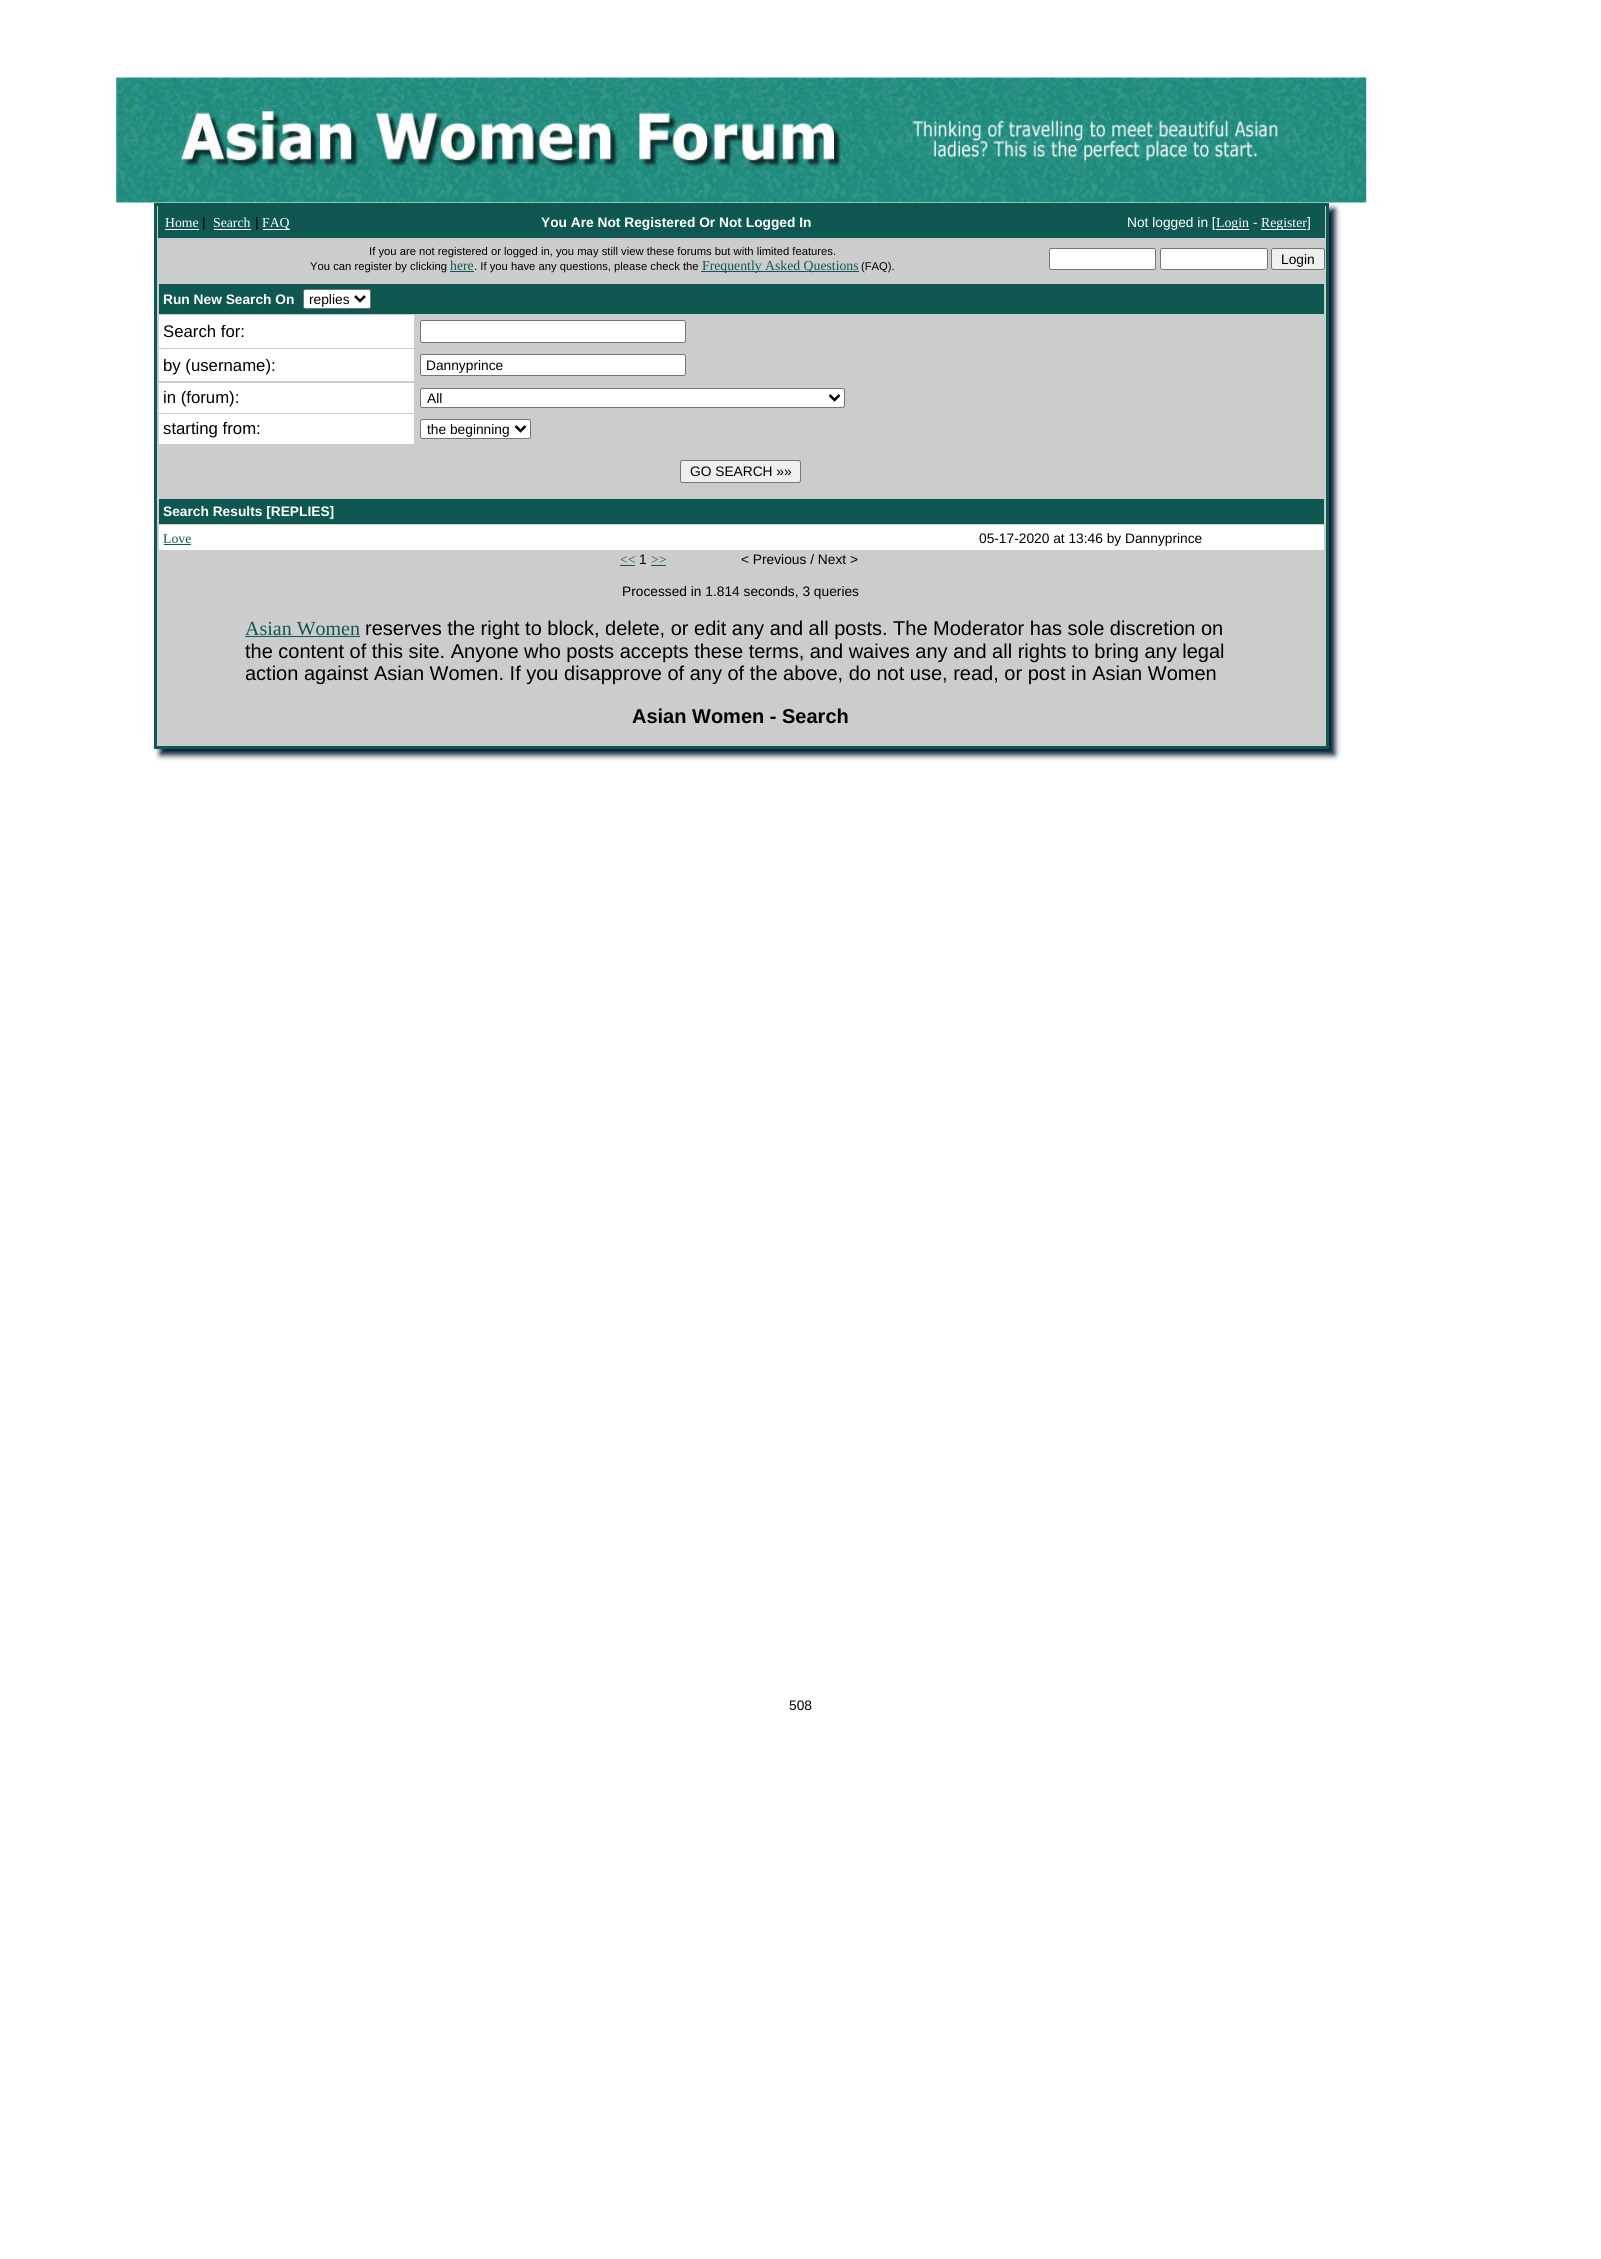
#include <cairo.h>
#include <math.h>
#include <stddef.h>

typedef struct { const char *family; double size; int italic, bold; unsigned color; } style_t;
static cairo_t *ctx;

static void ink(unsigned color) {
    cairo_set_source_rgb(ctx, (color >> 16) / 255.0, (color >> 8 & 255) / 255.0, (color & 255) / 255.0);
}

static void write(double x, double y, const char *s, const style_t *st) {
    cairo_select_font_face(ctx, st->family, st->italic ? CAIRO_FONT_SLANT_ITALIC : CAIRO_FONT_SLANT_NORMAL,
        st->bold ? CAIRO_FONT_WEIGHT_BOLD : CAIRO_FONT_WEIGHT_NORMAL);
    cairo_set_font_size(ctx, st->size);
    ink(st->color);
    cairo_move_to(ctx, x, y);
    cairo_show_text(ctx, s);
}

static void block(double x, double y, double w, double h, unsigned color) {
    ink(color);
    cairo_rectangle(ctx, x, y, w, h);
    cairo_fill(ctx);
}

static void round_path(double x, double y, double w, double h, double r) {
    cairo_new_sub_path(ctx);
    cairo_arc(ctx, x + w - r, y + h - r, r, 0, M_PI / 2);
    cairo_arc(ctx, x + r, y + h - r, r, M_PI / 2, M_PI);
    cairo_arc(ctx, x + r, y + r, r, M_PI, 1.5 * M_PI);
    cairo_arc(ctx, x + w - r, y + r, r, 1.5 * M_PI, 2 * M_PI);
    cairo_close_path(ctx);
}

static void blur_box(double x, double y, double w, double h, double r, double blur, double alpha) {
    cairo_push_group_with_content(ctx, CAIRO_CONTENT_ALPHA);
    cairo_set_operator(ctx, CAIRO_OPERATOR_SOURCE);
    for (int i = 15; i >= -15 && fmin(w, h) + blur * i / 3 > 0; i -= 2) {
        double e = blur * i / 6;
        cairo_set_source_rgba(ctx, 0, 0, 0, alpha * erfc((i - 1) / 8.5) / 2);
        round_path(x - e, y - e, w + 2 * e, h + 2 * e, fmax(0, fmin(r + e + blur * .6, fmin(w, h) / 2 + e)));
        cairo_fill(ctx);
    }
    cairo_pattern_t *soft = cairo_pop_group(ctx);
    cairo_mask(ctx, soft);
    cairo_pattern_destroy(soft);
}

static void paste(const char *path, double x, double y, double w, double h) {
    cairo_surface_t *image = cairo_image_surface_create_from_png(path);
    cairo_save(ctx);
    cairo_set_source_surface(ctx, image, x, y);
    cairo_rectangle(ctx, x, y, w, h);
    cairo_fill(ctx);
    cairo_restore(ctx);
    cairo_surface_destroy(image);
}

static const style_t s1 = {"Liberation Serif", 13.75, 0, 0, 0xffffff};
static const style_t s2 = {"Liberation Sans", 13.75, 0, 0, 0x000000};
static const style_t s3 = {"Liberation Sans", 13.75, 0, 1, 0xffffff};
static const style_t s4 = {"Liberation Sans", 13.75, 0, 0, 0xffffff};
static const style_t s5 = {"Liberation Sans", 11.25, 0, 0, 0x000000};
static const style_t s6 = {"Liberation Serif", 13.75, 0, 0, 0x0e5851};
static const style_t s7 = {"Liberation Sans", 16.75, 0, 0, 0x000000};
static const style_t s8 = {"Liberation Serif", 20, 0, 0, 0x0e5851};
static const style_t s9 = {"Liberation Sans", 20, 0, 0, 0x000000};
static const style_t s10 = {"Liberation Sans", 20, 0, 1, 0x000000};

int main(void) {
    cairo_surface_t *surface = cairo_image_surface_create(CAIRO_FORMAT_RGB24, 1601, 2259);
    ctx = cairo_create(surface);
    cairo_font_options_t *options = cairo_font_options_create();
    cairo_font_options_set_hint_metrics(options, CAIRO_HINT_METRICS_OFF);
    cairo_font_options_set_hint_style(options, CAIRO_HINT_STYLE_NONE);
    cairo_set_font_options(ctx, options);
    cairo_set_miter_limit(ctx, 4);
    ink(0xffffff);
    cairo_paint(ctx);
    ink(0x001b2f);
    blur_box(160, 209, 1175, 546, 0, 3, 1);
    paste("pic1.png", 116, 77, 1251, 126);
    ink(0xcccccc);
    cairo_rectangle(ctx, 155.5, 204.5, 1172, 543);
    cairo_fill_preserve(ctx);
    ink(0x0e5851);
    cairo_set_line_width(ctx, 3);
    cairo_stroke(ctx);
    block(158, 206, 1167, 32, 0x0e5851);
    write(165, 227, "Home", &s1);
    block(165, 229, 34, 1, 0xffffff);
    write(202, 227, "|", &s2);
    write(213, 227, "Search", &s1);
    block(214, 229, 37, 1, 0xffffff);
    write(255, 227, "|", &s2);
    block(263, 229, 27, 1, 0xffffff);
    write(262, 227, "FAQ", &s1);
    write(541, 227, "You Are Not Registered Or Not Logged In", &s3);
    write(1127, 227, "Not logged in [", &s4);
    block(1216, 229, 33, 1, 0xffffff);
    write(1216, 227, "Login", &s1);
    write(1253, 227, "-", &s4);
    block(1261, 229, 45, 1, 0xffffff);
    write(1261, 227, "Register", &s1);
    write(1307, 227, "]", &s4);
    write(369, 255, "If you are not registered or logged in, you may still view these forums but with limited features.", &s5);
    write(310, 270, "You can register by clicking", &s5);
    write(450, 270, "here", &s6);
    block(450, 271, 24, 1, 0x0e5851);
    write(474, 270, ". If you have any questions, please check the", &s5);
    block(701, 271, 158, 1, 0x0e5851);
    write(702, 270, "Frequently Asked Questions", &s6);
    write(861, 270, "(FAQ).", &s5);
    ink(0xffffff);
    round_path(1049.5, 248.5, 106, 21, 2);
    cairo_fill_preserve(ctx);
    ink(0x767676);
    cairo_set_line_width(ctx, 1);
    cairo_stroke(ctx);
    ink(0xffffff);
    round_path(1160.5, 248.5, 107, 21, 2);
    cairo_fill_preserve(ctx);
    ink(0x767676);
    cairo_stroke(ctx);
    ink(0xefefef);
    round_path(1271.5, 248.5, 53, 21, 2);
    cairo_fill_preserve(ctx);
    ink(0x767676);
    cairo_stroke(ctx);
    write(1281, 264, "Login", &s2);
    block(159, 284, 1165, 30, 0x0e5851);
    write(163, 304, "Run New Search On", &s3);
    round_path(303.5, 289.5, 67, 19, 2);
    cairo_fill_preserve(ctx);
    ink(0x767676);
    cairo_stroke(ctx);
    cairo_new_path(ctx);
    cairo_move_to(ctx, 355, 296);
    cairo_line_to(ctx, 360, 301);
    cairo_line_to(ctx, 365, 296);
    ink(0x000000);
    cairo_set_line_width(ctx, 2.5);
    cairo_stroke(ctx);
    write(309, 304, "replies", &s2);
    block(159, 315, 255, 33, 0xffffff);
    write(163, 337, "Search for:", &s7);
    ink(0xffffff);
    round_path(420.5, 320.5, 265, 22, 2);
    cairo_fill_preserve(ctx);
    ink(0x767676);
    cairo_set_line_width(ctx, 1);
    cairo_stroke(ctx);
    block(159, 349, 255, 32, 0xffffff);
    write(163, 371, "by (username):", &s7);
    ink(0xffffff);
    round_path(420.5, 354.5, 265, 21, 2);
    cairo_fill_preserve(ctx);
    ink(0x767676);
    cairo_stroke(ctx);
    write(426, 370, "Dannyprince", &s2);
    block(159, 383, 255, 30, 0xffffff);
    write(163, 403, "in (forum):", &s7);
    ink(0xffffff);
    round_path(420.5, 388.5, 424, 19, 2);
    cairo_fill_preserve(ctx);
    ink(0x767676);
    cairo_stroke(ctx);
    cairo_new_path(ctx);
    cairo_move_to(ctx, 829.5, 395);
    cairo_line_to(ctx, 834.5, 400);
    cairo_line_to(ctx, 839.5, 395);
    ink(0x000000);
    cairo_set_line_width(ctx, 2.5);
    cairo_stroke(ctx);
    write(427, 403, "All", &s2);
    block(159, 414, 255, 30, 0xffffff);
    write(163, 434, "starting from:", &s7);
    ink(0xffffff);
    round_path(420.5, 419.5, 110, 19, 2);
    cairo_fill_preserve(ctx);
    ink(0x767676);
    cairo_set_line_width(ctx, 1);
    cairo_stroke(ctx);
    cairo_new_path(ctx);
    cairo_move_to(ctx, 515.5, 426);
    cairo_line_to(ctx, 520.5, 431);
    cairo_line_to(ctx, 525.5, 426);
    ink(0x000000);
    cairo_set_line_width(ctx, 2.5);
    cairo_stroke(ctx);
    write(427, 434, "the beginning", &s2);
    ink(0xefefef);
    round_path(680.5, 460.5, 120, 22, 2);
    cairo_fill_preserve(ctx);
    ink(0x767676);
    cairo_set_line_width(ctx, 1);
    cairo_stroke(ctx);
    write(690, 476, "GO SEARCH »»", &s2);
    block(159, 499, 1165, 25, 0x0e5851);
    write(163, 516, "Search Results [REPLIES]", &s3);
    block(159, 525, 1165, 25, 0xffffff);
    write(163, 543, "Love", &s6);
    block(164, 544, 27, 1, 0x0e5851);
    write(979, 543, "05-17-2020 at 13:46 by Dannyprince", &s2);
    write(620, 564, "<<", &s6);
    block(620, 565, 15, 1, 0x0e5851);
    write(639, 564, "1", &s2);
    write(651, 564, ">>", &s6);
    block(651, 565, 15, 1, 0x0e5851);
    write(741, 564, "< Previous / Next >", &s2);
    write(622, 596, "Processed in 1.814 seconds, 3 queries", &s2);
    write(245, 635, "Asian Women", &s8);
    block(245, 636, 115, 1, 0x0e5851);
    write(365, 635, "reserves the right to block, delete, or edit any and all posts. The Moderator has sole discretion on", &s9);
    write(245, 658, "the content of this site. Anyone who posts accepts these terms, and waives any and all rights to bring any legal", &s9);
    write(245, 680, "action against Asian Women. If you disapprove of any of the above, do not use, read, or post in Asian Women", &s9);
    write(632, 723, "Asian Women - Search", &s10);
    write(789, 1710, "508", &s2);
    cairo_surface_write_to_png(surface, "screenshot.png");
    cairo_font_options_destroy(options);
    cairo_destroy(ctx);
    cairo_surface_destroy(surface);
    return 0;
}
